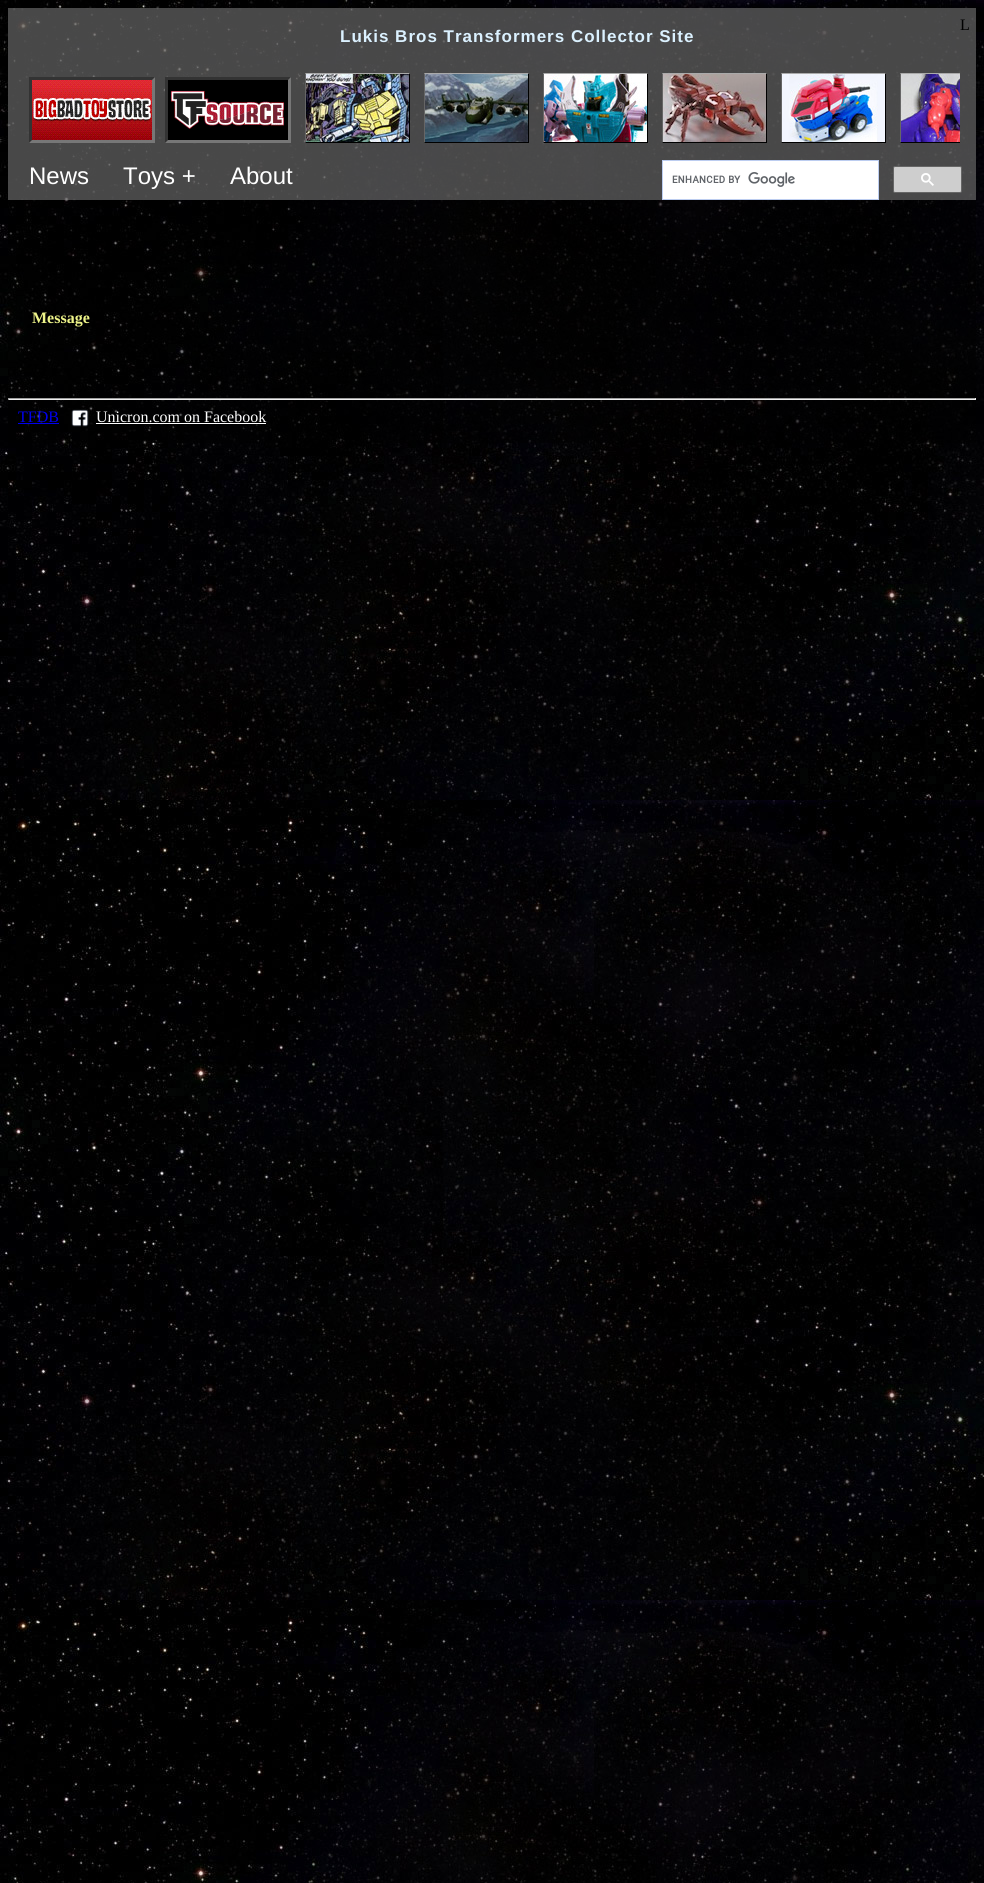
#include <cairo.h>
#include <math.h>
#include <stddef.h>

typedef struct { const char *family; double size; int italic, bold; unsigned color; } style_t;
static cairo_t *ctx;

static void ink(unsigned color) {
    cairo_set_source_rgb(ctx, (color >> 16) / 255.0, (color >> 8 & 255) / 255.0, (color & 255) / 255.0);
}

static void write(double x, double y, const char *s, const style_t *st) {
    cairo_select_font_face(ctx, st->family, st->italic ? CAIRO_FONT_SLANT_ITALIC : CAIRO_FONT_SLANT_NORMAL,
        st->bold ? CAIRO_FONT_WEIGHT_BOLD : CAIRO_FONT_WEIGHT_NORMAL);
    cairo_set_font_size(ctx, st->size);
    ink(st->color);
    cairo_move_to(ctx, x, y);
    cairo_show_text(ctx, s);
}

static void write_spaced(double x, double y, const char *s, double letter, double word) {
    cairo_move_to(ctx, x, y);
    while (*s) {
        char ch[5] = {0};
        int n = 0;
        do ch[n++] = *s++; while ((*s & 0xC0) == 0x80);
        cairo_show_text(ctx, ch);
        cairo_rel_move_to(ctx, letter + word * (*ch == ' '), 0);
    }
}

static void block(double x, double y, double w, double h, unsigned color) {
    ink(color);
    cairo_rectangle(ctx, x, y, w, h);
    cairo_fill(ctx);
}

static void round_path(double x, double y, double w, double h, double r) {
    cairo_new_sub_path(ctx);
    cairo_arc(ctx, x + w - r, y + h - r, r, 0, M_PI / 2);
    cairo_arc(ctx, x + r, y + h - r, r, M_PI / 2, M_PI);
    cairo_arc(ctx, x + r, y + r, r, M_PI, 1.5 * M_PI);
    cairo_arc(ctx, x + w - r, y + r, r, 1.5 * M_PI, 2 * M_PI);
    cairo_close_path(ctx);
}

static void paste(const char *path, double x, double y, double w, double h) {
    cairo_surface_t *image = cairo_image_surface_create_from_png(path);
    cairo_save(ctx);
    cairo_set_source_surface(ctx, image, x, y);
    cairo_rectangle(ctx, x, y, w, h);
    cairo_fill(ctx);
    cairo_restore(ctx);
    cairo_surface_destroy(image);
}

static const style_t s1 = {"Liberation Serif", 16, 0, 0, 0x000000};
static const style_t s2 = {"Liberation Sans", 24, 0, 0, 0xffffff};
static const style_t s3 = {"Liberation Serif", 16, 0, 1, 0xeef489};
static const style_t s4 = {"Liberation Serif", 16, 0, 0, 0x0000ee};
static const style_t s5 = {"Liberation Serif", 16, 0, 0, 0xffffff};

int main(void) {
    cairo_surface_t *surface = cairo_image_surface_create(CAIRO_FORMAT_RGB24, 984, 1883);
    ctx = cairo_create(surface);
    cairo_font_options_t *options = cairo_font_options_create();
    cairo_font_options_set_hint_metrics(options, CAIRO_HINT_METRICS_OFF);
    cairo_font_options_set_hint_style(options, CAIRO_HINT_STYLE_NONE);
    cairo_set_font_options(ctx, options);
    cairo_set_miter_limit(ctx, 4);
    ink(0xffffff);
    cairo_paint(ctx);
    paste("pic1.png", 0, 0, 984, 1883);
    cairo_set_source_rgba(ctx, 0, 0, 0, 0.45);
    cairo_rectangle(ctx, 8, 8, 968, 435);
    cairo_fill(ctx);
    cairo_set_source_rgba(ctx, 0.471, 0.471, 0.471, 0.6);
    cairo_rectangle(ctx, 8, 8, 968, 192);
    cairo_fill(ctx);
    write(960, 30, "L", &s1);
    cairo_select_font_face(ctx, "Liberation Sans", CAIRO_FONT_SLANT_NORMAL, CAIRO_FONT_WEIGHT_BOLD);
    cairo_set_font_size(ctx, 17);
    ink(0xdbf1ff);
    write_spaced(340, 42, "Lukis Bros Transformers Collector Site", 1, 0);
    paste("pic2.png", 29, 73, 931, 70);
    write(29, 184, "News", &s2);
    write(123, 184, "Toys +", &s2);
    write(230, 184, "About", &s2);
    cairo_rectangle(ctx, 662.5, 160.5, 216, 39);
    cairo_fill_preserve(ctx);
    ink(0xbccdf0);
    cairo_set_line_width(ctx, 1);
    cairo_stroke(ctx);
    paste("pic3.png", 672, 172, 123, 15);
    ink(0xcecece);
    round_path(893.5, 166.5, 68, 26, 1.5);
    cairo_fill_preserve(ctx);
    ink(0x666666);
    cairo_stroke(ctx);
    paste("pic4.png", 921, 173, 13, 13);
    write(32, 323, "Message", &s3);
    block(8, 398, 968, 1, 0x9f9f9f);
    block(975, 398, 1, 2, 0xeeeeee);
    block(8, 399, 968, 1, 0xeeeeee);
    block(8, 398, 1, 2, 0x9f9f9f);
    write(18, 422, "TFDB", &s4);
    block(18, 423, 41, 1, 0x0000ee);
    paste("pic5.png", 71, 409, 18, 18);
    write(96, 422, "Unicron.com on Facebook", &s5);
    block(96, 423, 170, 1, 0xffffff);
    cairo_surface_write_to_png(surface, "screenshot.png");
    cairo_font_options_destroy(options);
    cairo_destroy(ctx);
    cairo_surface_destroy(surface);
    return 0;
}
